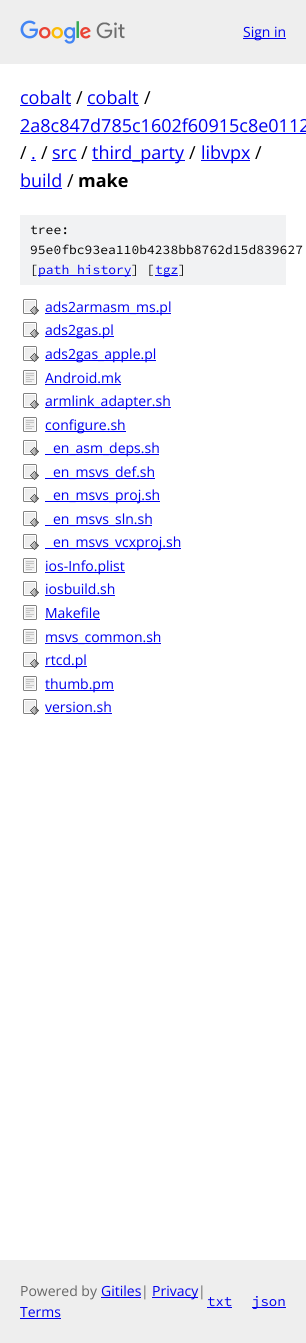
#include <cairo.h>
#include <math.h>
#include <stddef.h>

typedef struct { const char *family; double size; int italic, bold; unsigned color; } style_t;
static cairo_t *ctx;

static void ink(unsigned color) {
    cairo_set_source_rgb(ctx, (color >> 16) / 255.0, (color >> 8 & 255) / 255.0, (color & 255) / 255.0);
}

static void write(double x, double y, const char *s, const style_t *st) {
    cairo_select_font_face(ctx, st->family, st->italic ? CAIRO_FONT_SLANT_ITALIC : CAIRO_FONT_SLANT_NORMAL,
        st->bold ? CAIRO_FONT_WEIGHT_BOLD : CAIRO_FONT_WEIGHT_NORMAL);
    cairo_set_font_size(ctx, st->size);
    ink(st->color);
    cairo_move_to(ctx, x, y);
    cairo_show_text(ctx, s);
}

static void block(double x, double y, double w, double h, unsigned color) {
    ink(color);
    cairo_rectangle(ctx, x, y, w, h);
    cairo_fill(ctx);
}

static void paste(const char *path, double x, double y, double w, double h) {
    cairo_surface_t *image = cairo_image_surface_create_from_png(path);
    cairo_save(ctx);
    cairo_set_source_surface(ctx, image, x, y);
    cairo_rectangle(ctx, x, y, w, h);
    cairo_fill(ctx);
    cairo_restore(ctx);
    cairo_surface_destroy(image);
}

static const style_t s1 = {"Open Sans", 14, 0, 0, 0x0000ee};
static const style_t s2 = {"Open Sans", 18, 0, 0, 0x0000ee};
static const style_t s3 = {"Open Sans", 18, 0, 0, 0x000000};
static const style_t s4 = {"Open Sans", 18, 0, 1, 0x000000};
static const style_t s5 = {"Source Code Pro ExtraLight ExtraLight", 13, 0, 0, 0x000000};
static const style_t s6 = {"Source Code Pro ExtraLight ExtraLight", 13, 0, 0, 0x0000ee};
static const style_t s7 = {"Open Sans", 14, 0, 0, 0x666666};
static const style_t s8 = {"Source Code Pro ExtraLight ExtraLight", 14, 0, 0, 0x0000ee};

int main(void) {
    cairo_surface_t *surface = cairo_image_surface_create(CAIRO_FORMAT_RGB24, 306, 1343);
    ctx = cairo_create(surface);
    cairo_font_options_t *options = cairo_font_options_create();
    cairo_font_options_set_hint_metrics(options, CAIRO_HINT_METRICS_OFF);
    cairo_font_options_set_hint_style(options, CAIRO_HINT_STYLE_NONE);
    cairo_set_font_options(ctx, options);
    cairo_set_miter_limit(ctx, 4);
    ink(0xffffff);
    cairo_paint(ctx);
    block(0, 0, 306, 64, 0xeeeeee);
    paste("pic1.png", 20, 20, 105, 24);
    block(243, 38, 43, 1, 0x0000ee);
    write(243, 37, "Sign in", &s1);
    write(20, 104, "cobalt", &s2);
    block(20, 105, 51, 1, 0x0000ee);
    write(76, 104, "/", &s3);
    write(87, 104, "cobalt", &s2);
    block(87, 105, 52, 1, 0x0000ee);
    write(144, 104, "/", &s3);
    write(20, 132, "2a8c847d785c1602f60915c8e0112", &s2);
    block(20, 133, 286, 1, 0x0000ee);
    write(20, 159, "/", &s3);
    write(31, 159, ".", &s2);
    block(31, 160, 5, 1, 0x0000ee);
    write(41, 159, "/", &s3);
    write(52, 159, "src", &s2);
    block(52, 160, 25, 1, 0x0000ee);
    write(81, 159, "/", &s3);
    block(92, 160, 93, 1, 0x0000ee);
    write(92, 159, "third_party", &s2);
    write(189, 159, "/", &s3);
    block(201, 160, 49, 1, 0x0000ee);
    write(201, 159, "libvpx", &s2);
    write(255, 159, "/", &s3);
    write(20, 187, "build", &s2);
    block(20, 188, 42, 1, 0x0000ee);
    write(67, 187, "/", &s3);
    write(78, 187, "make", &s4);
    block(20, 215, 266, 70, 0xf1f2f3);
    write(30, 234, "tree:", &s5);
    write(30, 254, "95e0fbc93ea110b4238bb8762d15d839627", &s5);
    write(30, 274, "[", &s5);
    block(38, 275, 93, 1, 0x0000ee);
    write(38, 274, "path history", &s6);
    write(131, 274, "] [", &s5);
    block(155, 275, 23, 1, 0x0000ee);
    write(155, 274, "tgz", &s6);
    write(178, 274, "]", &s5);
    paste("pic2.png", 23, 299, 16, 16);
    block(45, 313, 126, 1, 0x0000ee);
    write(45, 312, "ads2armasm_ms.pl", &s1);
    paste("pic2.png", 23, 322, 16, 16);
    block(45, 336, 69, 1, 0x0000ee);
    write(45, 335, "ads2gas.pl", &s1);
    paste("pic2.png", 23, 346, 16, 16);
    block(45, 360, 111, 1, 0x0000ee);
    write(45, 359, "ads2gas_apple.pl", &s1);
    paste("pic3.png", 23, 370, 14, 15);
    write(45, 383, "Android.mk", &s1);
    block(45, 384, 76, 1, 0x0000ee);
    paste("pic2.png", 23, 393, 16, 16);
    block(45, 407, 126, 1, 0x0000ee);
    write(45, 406, "armlink_adapter.sh", &s1);
    paste("pic3.png", 23, 417, 14, 15);
    block(45, 431, 81, 1, 0x0000ee);
    write(45, 430, "configure.sh", &s1);
    paste("pic2.png", 23, 440, 16, 16);
    block(45, 454, 114, 1, 0x0000ee);
    write(53, 453, "en_asm_deps.sh", &s1);
    paste("pic2.png", 23, 464, 16, 16);
    block(45, 478, 110, 1, 0x0000ee);
    write(53, 477, "en_msvs_def.sh", &s1);
    paste("pic2.png", 23, 487, 16, 16);
    block(45, 501, 115, 1, 0x0000ee);
    write(53, 500, "en_msvs_proj.sh", &s1);
    paste("pic2.png", 23, 511, 16, 16);
    block(45, 525, 107, 1, 0x0000ee);
    write(53, 524, "en_msvs_sln.sh", &s1);
    paste("pic2.png", 23, 534, 16, 16);
    block(45, 548, 136, 1, 0x0000ee);
    write(53, 547, "en_msvs_vcxproj.sh", &s1);
    paste("pic3.png", 23, 558, 14, 15);
    block(45, 572, 80, 1, 0x0000ee);
    write(45, 571, "ios-Info.plist", &s1);
    paste("pic2.png", 23, 581, 16, 16);
    write(45, 594, "iosbuild.sh", &s1);
    block(45, 595, 70, 1, 0x0000ee);
    paste("pic3.png", 23, 605, 14, 15);
    write(45, 618, "Makefile", &s1);
    block(45, 619, 55, 1, 0x0000ee);
    paste("pic3.png", 23, 629, 14, 15);
    block(45, 643, 116, 1, 0x0000ee);
    write(45, 642, "msvs_common.sh", &s1);
    paste("pic2.png", 23, 652, 16, 16);
    block(45, 666, 42, 1, 0x0000ee);
    write(45, 665, "rtcd.pl", &s1);
    paste("pic3.png", 23, 676, 14, 15);
    block(45, 690, 69, 1, 0x0000ee);
    write(45, 689, "thumb.pm", &s1);
    paste("pic2.png", 23, 699, 16, 16);
    write(45, 712, "version.sh", &s1);
    block(45, 713, 67, 1, 0x0000ee);
    block(0, 1260, 306, 83, 0xeeeeee);
    write(20, 1296, "Powered by", &s7);
    write(101, 1296, "Gitiles", &s1);
    block(101, 1297, 40, 1, 0x0000ee);
    write(141, 1296, "|", &s7);
    block(152, 1297, 46, 1, 0x0000ee);
    write(152, 1296, "Privacy", &s1);
    write(198, 1296, "|", &s7);
    write(20, 1317, "Terms", &s1);
    block(20, 1318, 41, 1, 0x0000ee);
    write(207, 1306, "txt", &s8);
    block(207, 1307, 25, 1, 0x0000ee);
    block(252, 1307, 34, 1, 0x0000ee);
    write(252, 1306, "json", &s8);
    cairo_surface_write_to_png(surface, "screenshot.png");
    cairo_font_options_destroy(options);
    cairo_destroy(ctx);
    cairo_surface_destroy(surface);
    return 0;
}
